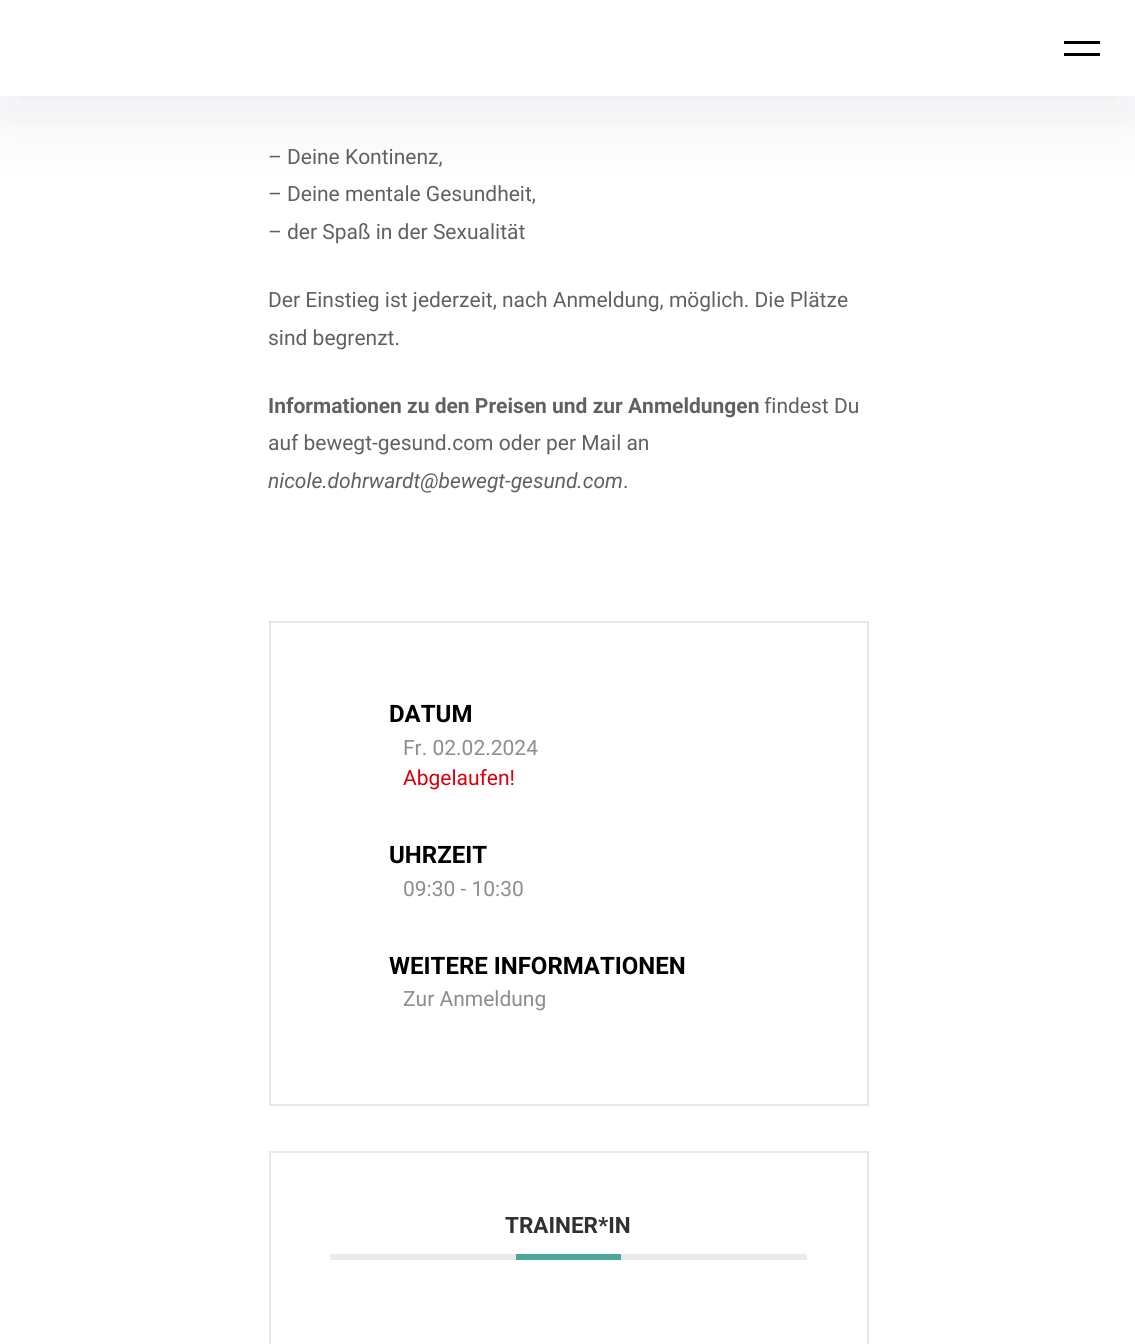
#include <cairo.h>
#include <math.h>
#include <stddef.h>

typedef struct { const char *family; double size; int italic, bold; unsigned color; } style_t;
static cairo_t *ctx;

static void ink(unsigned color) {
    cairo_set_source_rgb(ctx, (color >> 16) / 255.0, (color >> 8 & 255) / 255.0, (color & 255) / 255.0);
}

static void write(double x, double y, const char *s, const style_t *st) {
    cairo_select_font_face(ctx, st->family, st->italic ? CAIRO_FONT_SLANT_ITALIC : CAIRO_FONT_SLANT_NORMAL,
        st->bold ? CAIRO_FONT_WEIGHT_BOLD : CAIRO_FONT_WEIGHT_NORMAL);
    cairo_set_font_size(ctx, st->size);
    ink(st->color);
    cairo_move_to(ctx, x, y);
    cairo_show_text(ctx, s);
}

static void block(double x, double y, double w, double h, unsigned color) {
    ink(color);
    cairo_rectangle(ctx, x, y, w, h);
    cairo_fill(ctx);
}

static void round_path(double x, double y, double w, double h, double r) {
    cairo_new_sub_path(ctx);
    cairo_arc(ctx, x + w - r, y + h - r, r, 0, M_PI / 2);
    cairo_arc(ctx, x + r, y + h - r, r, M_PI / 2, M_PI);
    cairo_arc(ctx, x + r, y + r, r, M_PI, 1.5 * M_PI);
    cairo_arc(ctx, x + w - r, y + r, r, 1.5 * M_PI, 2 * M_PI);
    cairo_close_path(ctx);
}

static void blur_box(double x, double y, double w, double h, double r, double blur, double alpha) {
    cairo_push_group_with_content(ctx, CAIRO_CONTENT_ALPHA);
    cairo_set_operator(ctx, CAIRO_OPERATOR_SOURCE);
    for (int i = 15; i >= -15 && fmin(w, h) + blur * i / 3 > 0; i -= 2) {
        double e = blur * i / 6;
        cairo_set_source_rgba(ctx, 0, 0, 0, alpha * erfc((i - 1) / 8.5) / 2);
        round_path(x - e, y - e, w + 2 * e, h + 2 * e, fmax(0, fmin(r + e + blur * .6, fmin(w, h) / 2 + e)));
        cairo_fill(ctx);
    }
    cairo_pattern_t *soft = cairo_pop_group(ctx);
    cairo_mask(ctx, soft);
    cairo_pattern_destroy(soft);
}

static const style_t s1 = {"Roboto", 21, 0, 0, 0x616161};
static const style_t s2 = {"Roboto", 21, 0, 1, 0x616161};
static const style_t s3 = {"Roboto", 21, 1, 0, 0x616161};
static const style_t s4 = {"Roboto", 24, 0, 1, 0x000000};
static const style_t s5 = {"Roboto", 21, 0, 0, 0x8d8d8d};
static const style_t s6 = {"Roboto", 21, 0, 0, 0xd8000c};
static const style_t s7 = {"Roboto", 22.5, 0, 1, 0x313131};

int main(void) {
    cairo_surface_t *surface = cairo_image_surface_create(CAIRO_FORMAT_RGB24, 1135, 1344);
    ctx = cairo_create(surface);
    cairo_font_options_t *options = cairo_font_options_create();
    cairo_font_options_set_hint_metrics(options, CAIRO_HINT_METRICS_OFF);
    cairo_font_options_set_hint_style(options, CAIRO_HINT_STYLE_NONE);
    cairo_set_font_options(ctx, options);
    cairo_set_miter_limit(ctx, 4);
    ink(0xffffff);
    cairo_paint(ctx);
    ink(0x1f2044);
    blur_box(0, 24, 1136, 96, 0, 36, 0.08);
    block(0, 0, 1135, 96, 0xffffff);
    block(1064, 41, 36, 3, 0x000000);
    block(1064, 53, 36, 3, 0x000000);
    write(268, 164, "– Deine Kontinenz,", &s1);
    write(268, 201, "– Deine mentale Gesundheit,", &s1);
    write(268, 239, "– der Spaß in der Sexualität", &s1);
    write(268, 307, "Der Einstieg ist jederzeit, nach Anmeldung, möglich. Die Plätze", &s1);
    write(268, 345, "sind begrenzt.", &s1);
    write(268, 413, "Informationen zu den Preisen und zur Anmeldungen", &s2);
    write(764, 413, "findest Du", &s1);
    write(268, 450, "auf bewegt-gesund.com oder per Mail an", &s1);
    write(268, 488, "nicole.dohrwardt@bewegt-gesund.com", &s3);
    write(623, 488, ".", &s1);
    cairo_rectangle(ctx, 270, 622, 598, 483);
    ink(0xe6e7e8);
    cairo_stroke(ctx);
    write(389, 722, "DATUM", &s4);
    write(403, 755, "Fr. 02.02.2024", &s5);
    write(403, 785, "Abgelaufen!", &s6);
    write(389, 863, "UHRZEIT", &s4);
    write(403, 896, "09:30 - 10:30", &s5);
    write(389, 974, "WEITERE INFORMATIONEN", &s4);
    write(403, 1006, "Zur Anmeldung", &s5);
    cairo_rectangle(ctx, 270, 1152, 598, 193);
    ink(0xe6e7e8);
    cairo_stroke(ctx);
    block(330, 1254, 477, 6, 0xebebeb);
    write(505, 1233, "TRAINER*IN", &s7);
    block(516, 1254, 105, 6, 0x49a79c);
    cairo_surface_write_to_png(surface, "screenshot.png");
    cairo_font_options_destroy(options);
    cairo_destroy(ctx);
    cairo_surface_destroy(surface);
    return 0;
}
